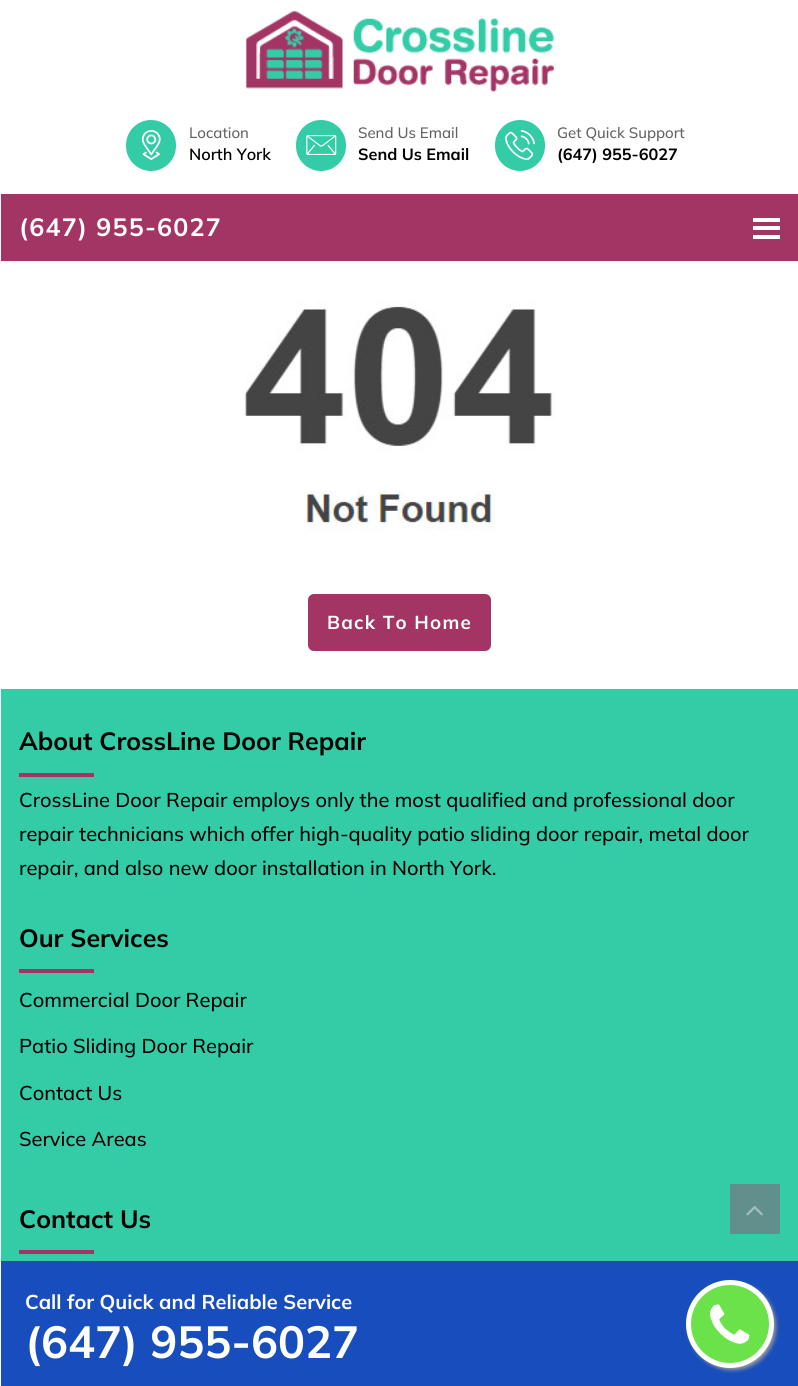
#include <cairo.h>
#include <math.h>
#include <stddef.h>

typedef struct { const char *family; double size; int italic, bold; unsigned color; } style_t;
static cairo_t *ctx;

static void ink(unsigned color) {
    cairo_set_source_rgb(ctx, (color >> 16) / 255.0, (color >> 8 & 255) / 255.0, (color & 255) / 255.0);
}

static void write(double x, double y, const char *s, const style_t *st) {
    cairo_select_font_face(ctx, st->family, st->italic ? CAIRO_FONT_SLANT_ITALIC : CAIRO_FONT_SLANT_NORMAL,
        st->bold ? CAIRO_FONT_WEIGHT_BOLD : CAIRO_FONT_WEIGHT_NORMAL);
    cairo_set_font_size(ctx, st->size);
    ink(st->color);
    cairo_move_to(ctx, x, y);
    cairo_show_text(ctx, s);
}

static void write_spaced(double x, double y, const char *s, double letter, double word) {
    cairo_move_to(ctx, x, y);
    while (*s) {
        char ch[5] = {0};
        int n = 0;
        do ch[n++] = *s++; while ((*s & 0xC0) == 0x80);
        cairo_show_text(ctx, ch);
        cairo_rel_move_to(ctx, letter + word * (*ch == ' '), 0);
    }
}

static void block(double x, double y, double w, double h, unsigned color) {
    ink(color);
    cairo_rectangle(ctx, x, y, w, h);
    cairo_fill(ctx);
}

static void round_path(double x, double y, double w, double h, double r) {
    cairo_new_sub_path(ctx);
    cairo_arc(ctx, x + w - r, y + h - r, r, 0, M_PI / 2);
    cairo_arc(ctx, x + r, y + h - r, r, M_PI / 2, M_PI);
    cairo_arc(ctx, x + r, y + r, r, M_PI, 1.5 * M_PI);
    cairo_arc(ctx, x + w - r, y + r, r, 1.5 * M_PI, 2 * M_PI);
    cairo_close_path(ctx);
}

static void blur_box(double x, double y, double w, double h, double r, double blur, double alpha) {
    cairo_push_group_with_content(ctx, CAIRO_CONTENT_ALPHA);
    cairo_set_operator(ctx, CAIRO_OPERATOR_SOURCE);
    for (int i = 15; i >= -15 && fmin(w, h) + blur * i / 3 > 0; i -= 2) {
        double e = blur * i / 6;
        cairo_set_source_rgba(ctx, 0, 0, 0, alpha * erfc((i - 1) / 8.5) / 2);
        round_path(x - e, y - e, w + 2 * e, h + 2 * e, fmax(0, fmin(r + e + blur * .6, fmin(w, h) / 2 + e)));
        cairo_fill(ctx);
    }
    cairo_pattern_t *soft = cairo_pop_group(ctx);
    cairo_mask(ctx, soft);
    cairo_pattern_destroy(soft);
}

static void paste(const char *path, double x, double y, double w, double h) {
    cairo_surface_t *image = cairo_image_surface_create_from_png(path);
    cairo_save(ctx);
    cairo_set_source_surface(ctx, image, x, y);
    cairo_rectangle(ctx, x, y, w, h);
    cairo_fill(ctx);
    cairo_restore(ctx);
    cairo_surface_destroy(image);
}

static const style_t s1 = {"Mulish Medium", 15, 0, 0, 0x626262};
static const style_t s2 = {"Mulish SemiBold", 16.25, 0, 0, 0x000000};
static const style_t s3 = {"Mulish", 16.25, 0, 1, 0x000000};
static const style_t s4 = {"Mulish", 25, 0, 1, 0x000000};
static const style_t s5 = {"Mulish Medium", 20, 0, 0, 0x000000};
static const style_t s6 = {"Mulish", 20, 0, 1, 0xffffff};
static const style_t s7 = {"Mulish", 45, 0, 1, 0xffffff};

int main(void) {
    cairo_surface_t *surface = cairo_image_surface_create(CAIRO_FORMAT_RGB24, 798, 1386);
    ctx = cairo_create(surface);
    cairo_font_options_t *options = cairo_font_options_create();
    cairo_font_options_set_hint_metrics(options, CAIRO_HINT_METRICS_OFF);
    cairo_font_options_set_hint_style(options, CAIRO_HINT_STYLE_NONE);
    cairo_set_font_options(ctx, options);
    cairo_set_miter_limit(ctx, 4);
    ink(0xffffff);
    cairo_paint(ctx);
    paste("pic1.png", 246, 11, 308, 81);
    ink(0x34cca7);
    round_path(126, 120, 50, 51, 25);
    cairo_fill(ctx);
    paste("pic2.png", 141, 130, 20, 30);
    write(189, 138, "Location", &s1);
    write(189, 160, "North York", &s2);
    ink(0x34cca7);
    round_path(296, 120, 50, 51, 25);
    cairo_fill(ctx);
    paste("pic3.png", 306, 135, 31, 20);
    write(358, 138, "Send Us Email", &s1);
    write(358, 160, "Send Us Email", &s3);
    ink(0x34cca7);
    round_path(495, 120, 50, 51, 25);
    cairo_fill(ctx);
    paste("pic4.png", 505, 130, 30, 30);
    write(557, 138, "Get Quick Support", &s1);
    write(557, 160, "(647) 955-6027", &s3);
    block(1, 194, 797, 67, 0xa33564);
    cairo_set_font_size(ctx, 25);
    ink(0xffffff);
    write_spaced(19, 236, "(647) 955-6027", 1.25, 0);
    block(753, 218, 27, 4, 0xffffff);
    block(753, 226, 27, 4, 0xffffff);
    block(753, 235, 27, 4, 0xffffff);
    paste("pic5.png", 244, 301, 312, 230);
    ink(0xa33564);
    round_path(308, 594, 183, 57, 6);
    cairo_fill(ctx);
    cairo_set_font_size(ctx, 18.75);
    ink(0xffffff);
    write_spaced(327, 629, "Back To Home", 1.25, 0);
    block(1, 689, 797, 572, 0x34cca7);
    write(19, 750, "About CrossLine Door Repair", &s4);
    block(19, 773, 75, 4, 0xa33564);
    write(19, 807, "CrossLine Door Repair employs only the most qualified and professional door", &s5);
    write(19, 841, "repair technicians which offer high-quality patio sliding door repair, metal door", &s5);
    write(19, 875, "repair, and also new door installation in North York.", &s5);
    write(19, 947, "Our Services", &s4);
    block(19, 969, 75, 4, 0xa33564);
    write(19, 1007, "Commercial Door Repair", &s5);
    write(19, 1053, "Patio Sliding Door Repair", &s5);
    write(19, 1100, "Contact Us", &s5);
    write(19, 1146, "Service Areas", &s5);
    write(19, 1228, "Contact Us", &s4);
    block(19, 1250, 75, 4, 0xa33564);
    block(730, 1184, 50, 50, 0x618f8c);
    paste("pic6.png", 746, 1205, 17, 11);
    block(1, 1261, 797, 125, 0x174dbc);
    write(25, 1309, "Call for Quick and Reliable Service", &s6);
    write(25, 1358, "(647) 955-6027", &s7);
    ink(0x999999);
    blur_box(689, 1283, 87, 87, 43.5, 2, 1);
    ink(0x6be24a);
    cairo_arc(ctx, 730, 1324, 41.5, 0, 2 * M_PI);
    cairo_fill_preserve(ctx);
    ink(0xffffff);
    cairo_set_line_width(ctx, 5);
    cairo_stroke(ctx);
    paste("pic7.png", 710, 1304, 40, 40);
    cairo_surface_write_to_png(surface, "screenshot.png");
    cairo_font_options_destroy(options);
    cairo_destroy(ctx);
    cairo_surface_destroy(surface);
    return 0;
}
